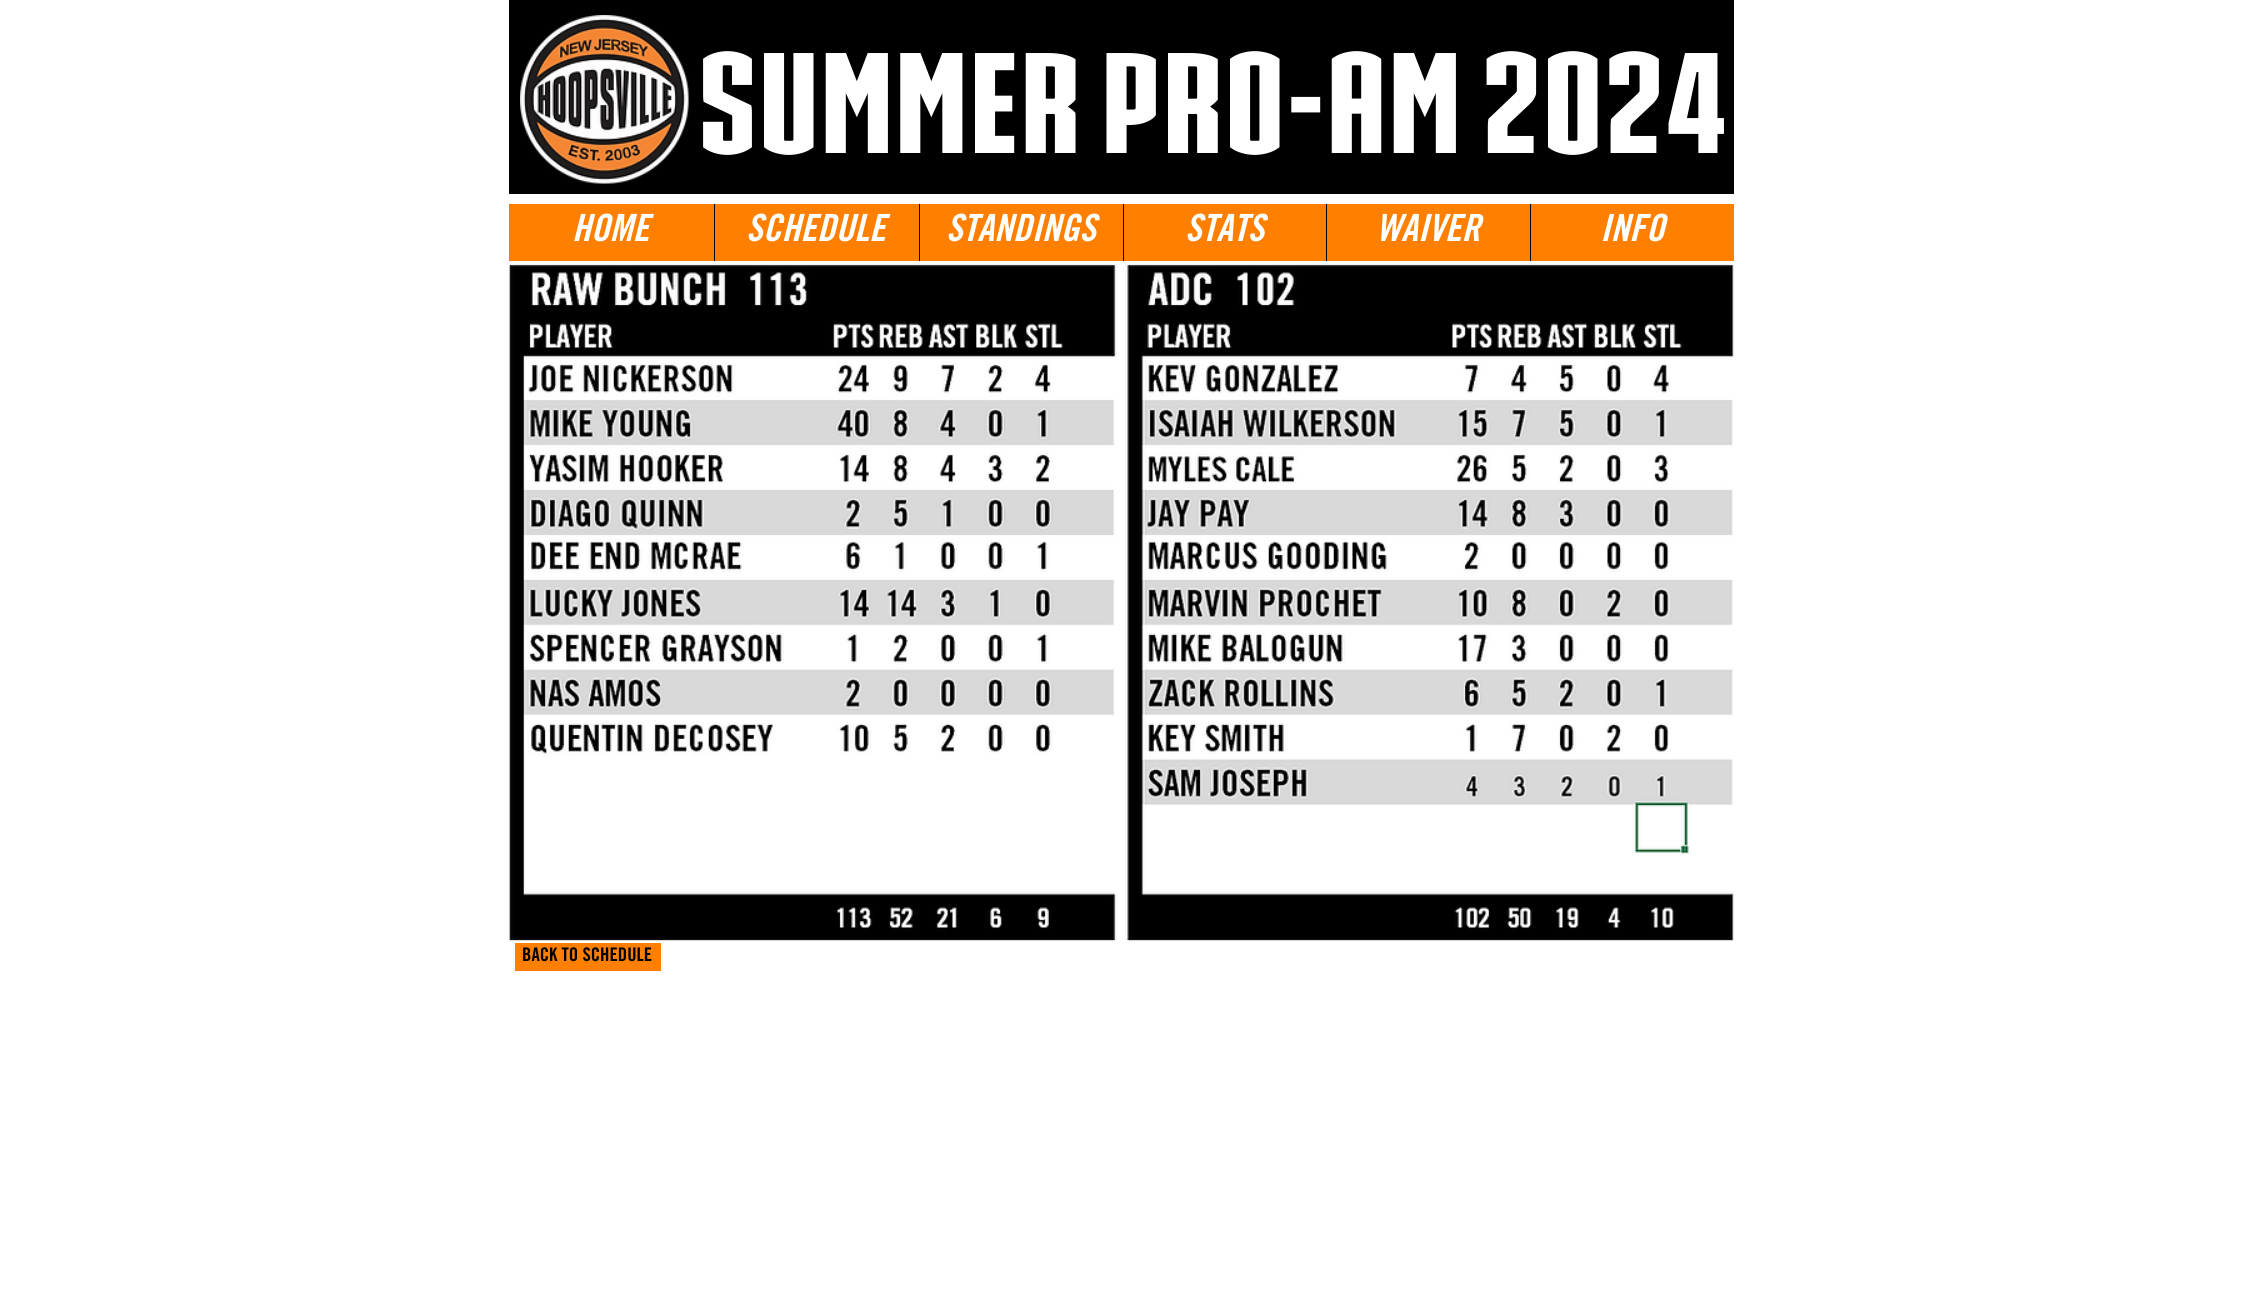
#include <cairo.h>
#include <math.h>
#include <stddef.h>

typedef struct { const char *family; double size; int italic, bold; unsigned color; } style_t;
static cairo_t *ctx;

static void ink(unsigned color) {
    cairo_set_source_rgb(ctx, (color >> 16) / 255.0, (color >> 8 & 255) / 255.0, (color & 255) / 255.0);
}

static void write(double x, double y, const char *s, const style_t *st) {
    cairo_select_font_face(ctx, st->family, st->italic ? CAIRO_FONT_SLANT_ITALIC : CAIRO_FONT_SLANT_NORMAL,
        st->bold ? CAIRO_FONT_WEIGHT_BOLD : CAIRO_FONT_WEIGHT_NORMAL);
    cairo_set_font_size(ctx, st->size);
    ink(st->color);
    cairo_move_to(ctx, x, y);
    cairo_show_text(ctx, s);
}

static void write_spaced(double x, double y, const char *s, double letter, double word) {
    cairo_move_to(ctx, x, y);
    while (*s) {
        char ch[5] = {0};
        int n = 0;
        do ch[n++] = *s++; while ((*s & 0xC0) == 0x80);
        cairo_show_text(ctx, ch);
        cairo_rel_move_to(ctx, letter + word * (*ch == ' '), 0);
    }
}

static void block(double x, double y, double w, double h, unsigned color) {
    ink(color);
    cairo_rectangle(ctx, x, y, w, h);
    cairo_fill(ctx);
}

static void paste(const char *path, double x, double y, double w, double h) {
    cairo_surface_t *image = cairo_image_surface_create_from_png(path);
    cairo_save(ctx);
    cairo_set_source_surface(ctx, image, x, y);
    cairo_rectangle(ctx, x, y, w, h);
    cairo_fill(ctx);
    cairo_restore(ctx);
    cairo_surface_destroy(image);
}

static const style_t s1 = {"Trade Gothic", 37.5, 1, 1, 0xffffff};
static const style_t s2 = {"Trade Gothic", 18.75, 0, 1, 0x000000};

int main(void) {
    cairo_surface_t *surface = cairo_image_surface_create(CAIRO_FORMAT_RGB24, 2241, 1295);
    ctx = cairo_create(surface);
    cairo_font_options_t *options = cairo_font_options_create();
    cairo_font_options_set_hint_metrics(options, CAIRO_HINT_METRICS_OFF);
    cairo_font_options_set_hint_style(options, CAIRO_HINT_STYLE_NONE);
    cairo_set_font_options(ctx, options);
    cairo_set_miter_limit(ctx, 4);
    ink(0xffffff);
    cairo_paint(ctx);
    block(509, 0, 1225, 194, 0x000000);
    paste("pic1.png", 520, 15, 169, 169);
    cairo_select_font_face(ctx, "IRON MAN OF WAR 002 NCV", CAIRO_FONT_SLANT_NORMAL, CAIRO_FONT_WEIGHT_NORMAL);
    cairo_set_font_size(ctx, 137.5);
    ink(0xffffff);
    write_spaced(698, 153, "SUMMER PRO-AM 2024", 1.4, 0);
    block(509, 204, 1225, 57, 0xff7f00);
    write(572, 241, "HOME", &s1);
    block(714, 204, 1, 57, 0x000000);
    write(746, 241, "SCHEDULE", &s1);
    block(919, 204, 1, 57, 0x000000);
    write(946, 241, "STANDINGS", &s1);
    block(1123, 204, 1, 57, 0x000000);
    write(1185, 241, "STATS", &s1);
    block(1326, 204, 1, 57, 0x000000);
    write(1376, 241, "WAIVER", &s1);
    block(1530, 204, 1, 57, 0x000000);
    write(1600, 241, "INFO", &s1);
    paste("pic2.png", 508, 264, 1226, 678);
    block(515, 943, 146, 28, 0xff7f00);
    write(522, 961, "BACK TO SCHEDULE", &s2);
    cairo_surface_write_to_png(surface, "screenshot.png");
    cairo_font_options_destroy(options);
    cairo_destroy(ctx);
    cairo_surface_destroy(surface);
    return 0;
}
